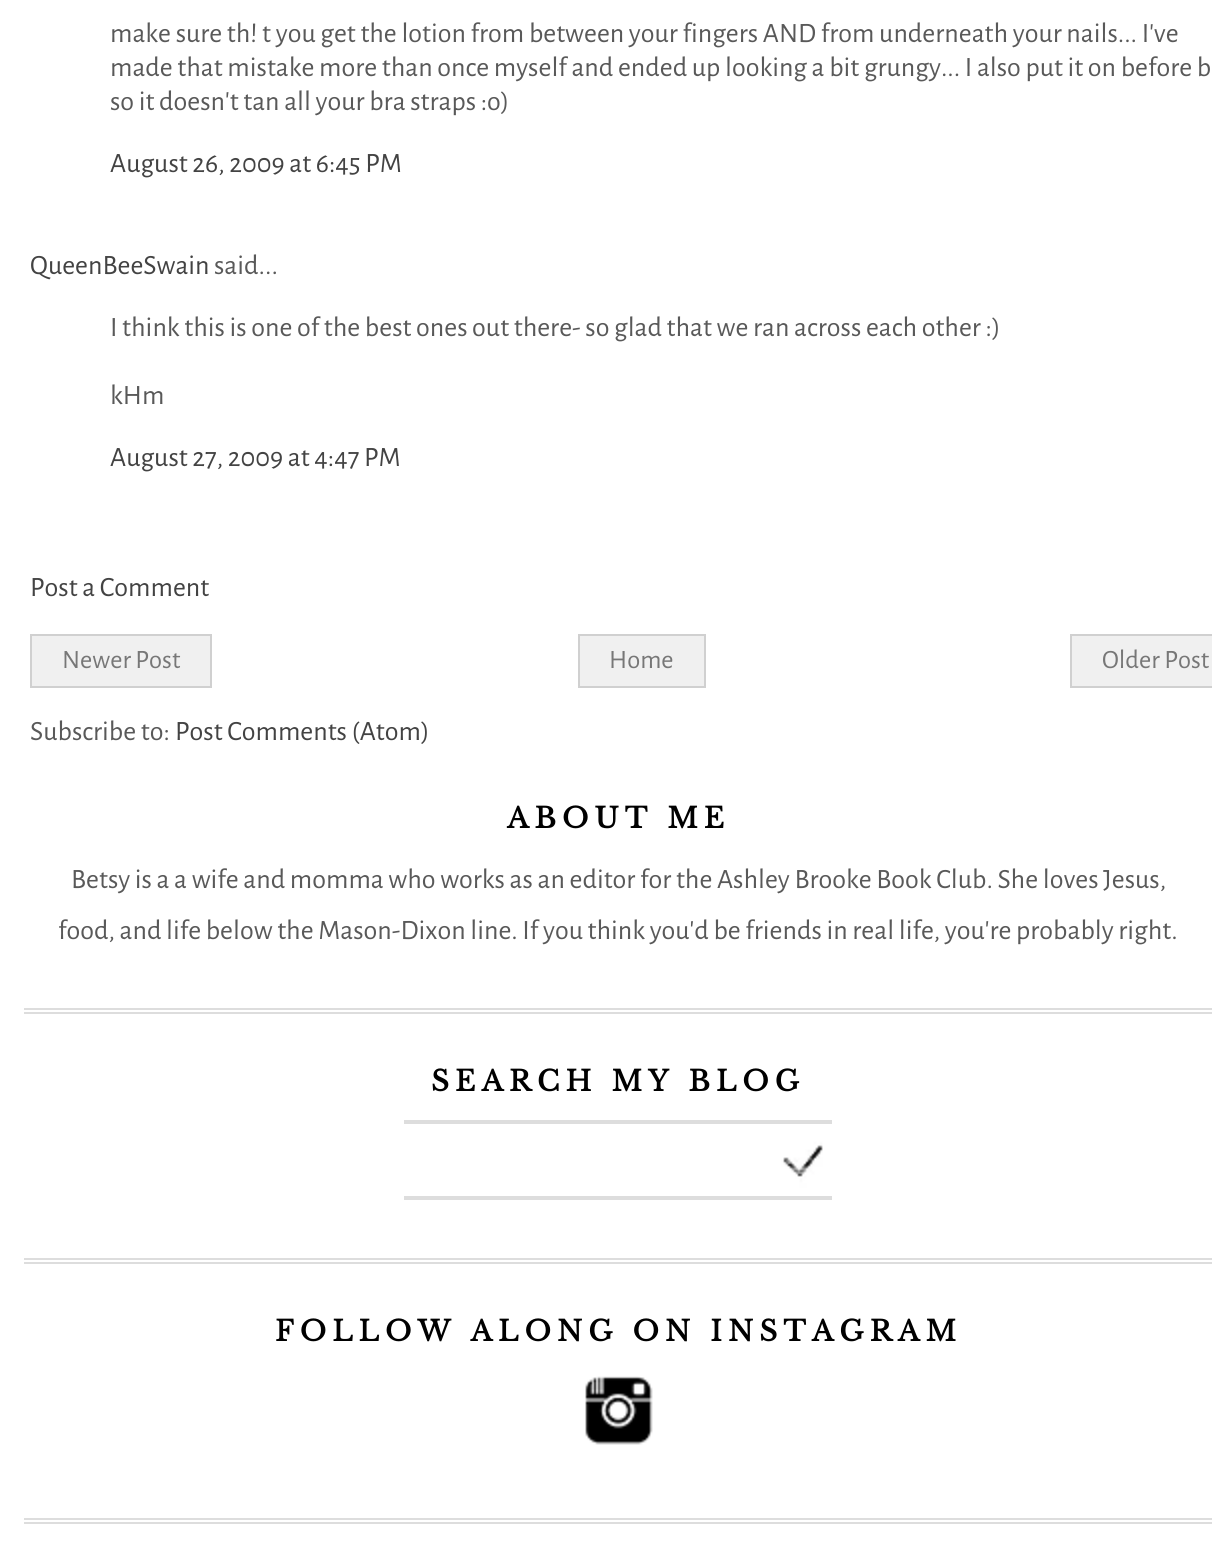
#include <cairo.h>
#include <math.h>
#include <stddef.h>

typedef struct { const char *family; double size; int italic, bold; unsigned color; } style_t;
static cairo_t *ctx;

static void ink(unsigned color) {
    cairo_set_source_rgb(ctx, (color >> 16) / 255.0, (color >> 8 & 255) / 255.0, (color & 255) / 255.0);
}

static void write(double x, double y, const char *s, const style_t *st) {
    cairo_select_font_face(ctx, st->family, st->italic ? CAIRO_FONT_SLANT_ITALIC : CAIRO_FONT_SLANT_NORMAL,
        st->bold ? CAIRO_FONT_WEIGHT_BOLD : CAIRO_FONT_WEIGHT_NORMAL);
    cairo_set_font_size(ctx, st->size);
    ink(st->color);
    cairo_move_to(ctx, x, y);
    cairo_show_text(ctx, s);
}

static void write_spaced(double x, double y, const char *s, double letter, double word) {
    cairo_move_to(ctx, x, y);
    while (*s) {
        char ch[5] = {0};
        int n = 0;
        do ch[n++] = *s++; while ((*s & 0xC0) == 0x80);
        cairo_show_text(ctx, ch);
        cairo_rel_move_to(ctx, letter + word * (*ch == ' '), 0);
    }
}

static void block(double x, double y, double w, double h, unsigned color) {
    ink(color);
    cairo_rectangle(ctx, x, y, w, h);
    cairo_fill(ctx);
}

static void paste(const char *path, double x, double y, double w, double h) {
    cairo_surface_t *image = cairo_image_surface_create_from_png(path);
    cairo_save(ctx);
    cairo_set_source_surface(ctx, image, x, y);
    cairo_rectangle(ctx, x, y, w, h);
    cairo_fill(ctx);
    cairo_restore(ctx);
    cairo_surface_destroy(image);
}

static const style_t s1 = {"Alegreya Sans", 28, 0, 0, 0x595959};
static const style_t s2 = {"Alegreya Sans", 28, 0, 0, 0x434343};
static const style_t s3 = {"Alegreya Sans", 26.5, 0, 0, 0x777777};

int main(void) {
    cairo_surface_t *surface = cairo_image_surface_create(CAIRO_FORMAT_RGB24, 1212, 1561);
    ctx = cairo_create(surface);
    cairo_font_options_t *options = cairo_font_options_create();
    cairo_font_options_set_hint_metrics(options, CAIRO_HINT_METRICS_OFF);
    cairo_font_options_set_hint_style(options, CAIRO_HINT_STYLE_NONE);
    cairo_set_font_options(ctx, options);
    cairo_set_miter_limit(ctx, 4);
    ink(0xffffff);
    cairo_paint(ctx);
    write(110, 42, "make sure th! t you get the lotion from between your fingers AND from underneath your nails... I've", &s1);
    write(110, 76, "made that mistake more than once myself and ended up looking a bit grungy... I also put it on before b", &s1);
    write(110, 110, "so it doesn't tan all your bra straps :o)", &s1);
    write(110, 172, "August 26, 2009 at 6:45 PM", &s2);
    write(30, 274, "QueenBeeSwain", &s2);
    write(214, 274, "said...", &s1);
    write(110, 336, "I think this is one of the best ones out there- so glad that we ran across each other :)", &s1);
    write(110, 404, "kHm", &s1);
    write(110, 466, "August 27, 2009 at 4:47 PM", &s2);
    write(30, 596, "Post a Comment", &s2);
    ink(0xf0f0f0);
    cairo_rectangle(ctx, 31, 635, 180, 52);
    cairo_fill_preserve(ctx);
    ink(0xd0d0d0);
    cairo_stroke(ctx);
    write(62, 668, "Newer Post", &s3);
    ink(0xf0f0f0);
    cairo_rectangle(ctx, 579, 635, 126, 52);
    cairo_fill_preserve(ctx);
    ink(0xd0d0d0);
    cairo_stroke(ctx);
    write(609, 668, "Home", &s3);
    ink(0xf0f0f0);
    cairo_rectangle(ctx, 1071, 635, 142, 52);
    cairo_fill_preserve(ctx);
    ink(0xd0d0d0);
    cairo_stroke(ctx);
    write(1102, 668, "Older Post", &s3);
    write(30, 740, "Subscribe to:", &s1);
    write(175, 740, "Post Comments (Atom)", &s2);
    block(24, 1008, 1188, 2, 0xdddddd);
    block(24, 1012, 1188, 2, 0xdddddd);
    cairo_select_font_face(ctx, "Libre Baskerville", CAIRO_FONT_SLANT_NORMAL, CAIRO_FONT_WEIGHT_BOLD);
    ink(0x000000);
    write_spaced(507, 828, "ABOUT ME", 6, 0);
    write(71, 888, "Betsy is a a wife and momma who works as an editor for the Ashley Brooke Book Club. She loves Jesus,", &s1);
    write(58, 939, "food, and life below the Mason-Dixon line. If you think you'd be friends in real life, you're probably right.", &s1);
    block(24, 1258, 1188, 2, 0xdddddd);
    block(24, 1262, 1188, 2, 0xdddddd);
    cairo_select_font_face(ctx, "Libre Baskerville", CAIRO_FONT_SLANT_NORMAL, CAIRO_FONT_WEIGHT_BOLD);
    ink(0x000000);
    write_spaced(431, 1091, "SEARCH MY BLOG", 6, 0);
    block(404, 1120, 428, 4, 0xdddddd);
    block(404, 1196, 428, 4, 0xdddddd);
    paste("pic1.png", 774, 1134, 58, 54);
    block(24, 1518, 1188, 2, 0xdddddd);
    block(24, 1522, 1188, 2, 0xdddddd);
    ink(0x000000);
    write_spaced(275, 1341, "FOLLOW ALONG ON INSTAGRAM", 6, 0);
    paste("pic2.png", 585, 1376, 68, 69);
    cairo_surface_write_to_png(surface, "screenshot.png");
    cairo_font_options_destroy(options);
    cairo_destroy(ctx);
    cairo_surface_destroy(surface);
    return 0;
}
